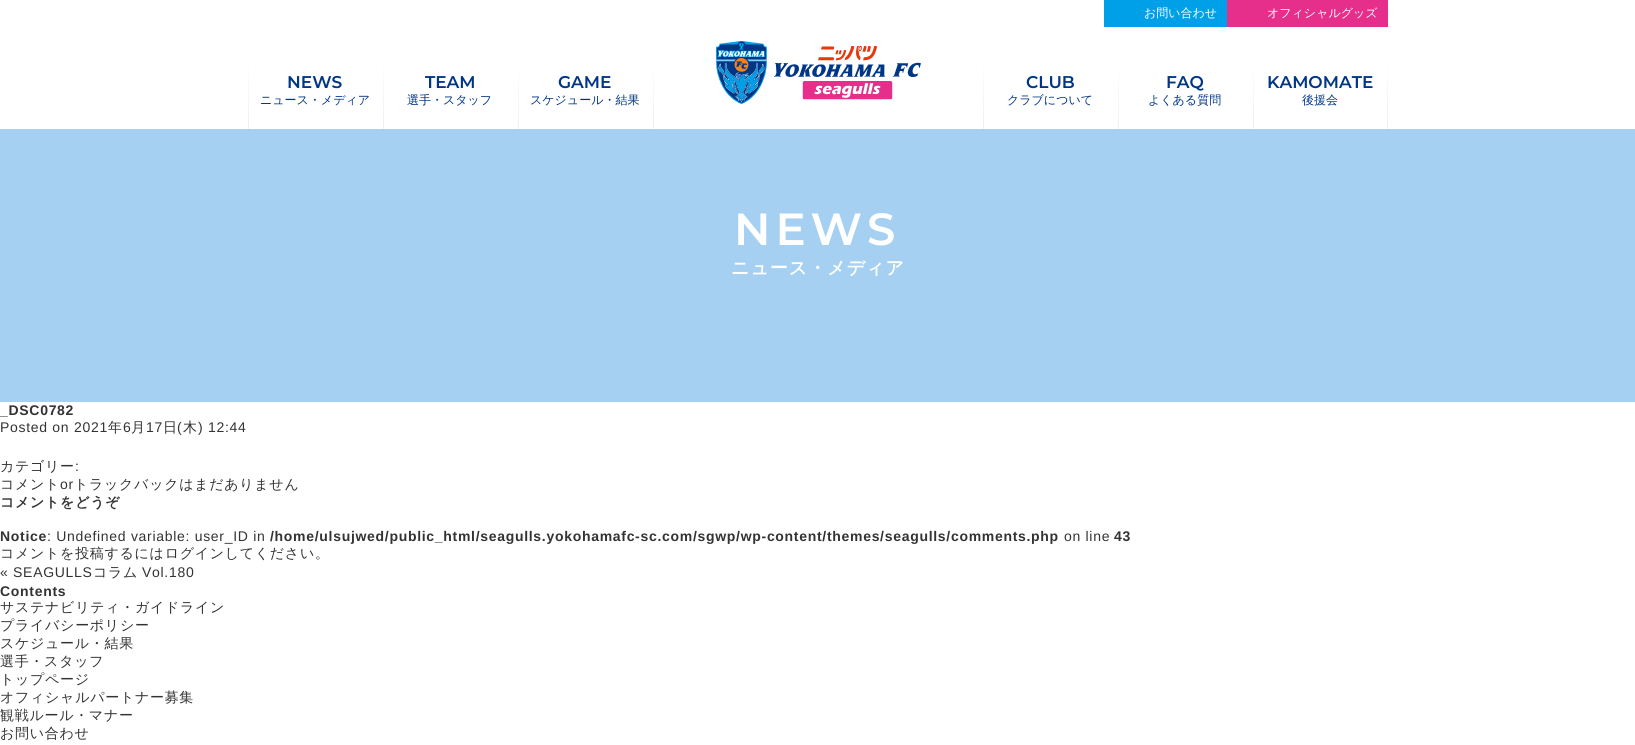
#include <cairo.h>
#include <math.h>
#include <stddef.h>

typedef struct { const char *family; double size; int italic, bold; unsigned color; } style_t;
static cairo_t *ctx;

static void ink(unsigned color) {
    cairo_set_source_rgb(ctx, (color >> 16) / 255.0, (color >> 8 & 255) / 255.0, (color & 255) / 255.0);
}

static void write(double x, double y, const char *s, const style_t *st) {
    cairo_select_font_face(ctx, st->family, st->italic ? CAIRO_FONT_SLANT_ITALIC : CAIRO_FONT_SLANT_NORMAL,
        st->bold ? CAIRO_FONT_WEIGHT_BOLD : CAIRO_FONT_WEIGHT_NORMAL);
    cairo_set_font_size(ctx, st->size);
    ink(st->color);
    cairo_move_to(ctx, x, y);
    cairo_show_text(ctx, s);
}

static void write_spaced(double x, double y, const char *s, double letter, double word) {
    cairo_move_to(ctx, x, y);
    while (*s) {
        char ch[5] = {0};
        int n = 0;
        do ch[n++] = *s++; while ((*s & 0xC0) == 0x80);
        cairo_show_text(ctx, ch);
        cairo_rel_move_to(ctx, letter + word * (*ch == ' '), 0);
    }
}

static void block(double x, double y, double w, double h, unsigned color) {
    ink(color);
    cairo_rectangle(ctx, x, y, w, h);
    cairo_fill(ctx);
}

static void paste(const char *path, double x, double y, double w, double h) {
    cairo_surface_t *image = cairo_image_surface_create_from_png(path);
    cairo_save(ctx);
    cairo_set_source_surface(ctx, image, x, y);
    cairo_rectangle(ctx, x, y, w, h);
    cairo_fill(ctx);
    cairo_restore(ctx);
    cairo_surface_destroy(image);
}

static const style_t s1 = {"WenQuanYi Zen Hei Medium", 12, 0, 0, 0xffffff};
static const style_t s2 = {"Montserrat SemiBold", 17, 0, 0, 0x003686};
static const style_t s3 = {"WenQuanYi Zen Hei Medium", 12, 0, 0, 0x003686};

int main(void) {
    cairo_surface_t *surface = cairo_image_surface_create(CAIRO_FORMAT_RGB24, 1635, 745);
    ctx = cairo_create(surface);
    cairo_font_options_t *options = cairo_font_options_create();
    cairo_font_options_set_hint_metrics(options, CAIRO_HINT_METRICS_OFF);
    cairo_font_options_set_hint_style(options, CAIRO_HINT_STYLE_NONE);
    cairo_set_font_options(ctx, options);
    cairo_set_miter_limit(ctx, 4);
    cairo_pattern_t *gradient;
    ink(0xffffff);
    cairo_paint(ctx);
    block(1104, 0, 123, 27, 0x00a0e9);
    write(1144, 17, "お問い合わせ", &s1);
    block(1227, 0, 161, 27, 0xe62e8b);
    write(1267, 17, "オフィシャルグッズ", &s1);
    gradient = cairo_pattern_create_linear(249, 57, 249, 129);
    cairo_pattern_add_color_stop_rgba(gradient, 0, 1, 1, 1, 1);
    cairo_pattern_add_color_stop_rgba(gradient, 1, 0.937, 0.937, 0.937, 1);
    cairo_set_source(ctx, gradient);
    cairo_pattern_destroy(gradient);
    cairo_rectangle(ctx, 248, 68, 1, 61);
    cairo_fill(ctx);
    write(287, 88, "NEWS", &s2);
    write(260, 104, "ニュース・メディア", &s3);
    gradient = cairo_pattern_create_linear(384, 57, 384, 129);
    cairo_pattern_add_color_stop_rgba(gradient, 0, 1, 1, 1, 1);
    cairo_pattern_add_color_stop_rgba(gradient, 1, 0.937, 0.937, 0.937, 1);
    cairo_set_source(ctx, gradient);
    cairo_pattern_destroy(gradient);
    cairo_rectangle(ctx, 383, 68, 1, 61);
    cairo_fill(ctx);
    write(425, 88, "TEAM", &s2);
    write(407, 104, "選手・スタッフ", &s3);
    gradient = cairo_pattern_create_linear(519, 57, 519, 129);
    cairo_pattern_add_color_stop_rgba(gradient, 0, 1, 1, 1, 1);
    cairo_pattern_add_color_stop_rgba(gradient, 1, 0.937, 0.937, 0.937, 1);
    cairo_set_source(ctx, gradient);
    cairo_pattern_destroy(gradient);
    cairo_rectangle(ctx, 518, 68, 1, 61);
    cairo_fill(ctx);
    write(558, 88, "GAME", &s2);
    write(530, 104, "スケジュール・結果", &s3);
    gradient = cairo_pattern_create_linear(654, 57, 654, 129);
    cairo_pattern_add_color_stop_rgba(gradient, 0, 1, 1, 1, 1);
    cairo_pattern_add_color_stop_rgba(gradient, 1, 0.937, 0.937, 0.937, 1);
    cairo_set_source(ctx, gradient);
    cairo_pattern_destroy(gradient);
    cairo_rectangle(ctx, 653, 68, 1, 61);
    cairo_fill(ctx);
    paste("pic1.png", 716, 41, 205, 63);
    gradient = cairo_pattern_create_linear(984, 57, 984, 129);
    cairo_pattern_add_color_stop_rgba(gradient, 0, 1, 1, 1, 1);
    cairo_pattern_add_color_stop_rgba(gradient, 1, 0.937, 0.937, 0.937, 1);
    cairo_set_source(ctx, gradient);
    cairo_pattern_destroy(gradient);
    cairo_rectangle(ctx, 983, 68, 1, 61);
    cairo_fill(ctx);
    write(1026, 88, "CLUB", &s2);
    write(1007, 104, "クラブについて", &s3);
    gradient = cairo_pattern_create_linear(1119, 57, 1119, 129);
    cairo_pattern_add_color_stop_rgba(gradient, 0, 1, 1, 1, 1);
    cairo_pattern_add_color_stop_rgba(gradient, 1, 0.937, 0.937, 0.937, 1);
    cairo_set_source(ctx, gradient);
    cairo_pattern_destroy(gradient);
    cairo_rectangle(ctx, 1118, 68, 1, 61);
    cairo_fill(ctx);
    write(1166, 88, "FAQ", &s2);
    write(1148, 104, "よくある質問", &s3);
    gradient = cairo_pattern_create_linear(1254, 57, 1254, 129);
    cairo_pattern_add_color_stop_rgba(gradient, 0, 1, 1, 1, 1);
    cairo_pattern_add_color_stop_rgba(gradient, 1, 0.937, 0.937, 0.937, 1);
    cairo_set_source(ctx, gradient);
    cairo_pattern_destroy(gradient);
    cairo_rectangle(ctx, 1253, 68, 1, 61);
    cairo_fill(ctx);
    write(1267, 88, "KAMOMATE", &s2);
    gradient = cairo_pattern_create_linear(1388, 57, 1388, 129);
    cairo_pattern_add_color_stop_rgba(gradient, 0, 1, 1, 1, 1);
    cairo_pattern_add_color_stop_rgba(gradient, 1, 0.937, 0.937, 0.937, 1);
    cairo_set_source(ctx, gradient);
    cairo_pattern_destroy(gradient);
    cairo_rectangle(ctx, 1387, 68, 1, 61);
    cairo_fill(ctx);
    write(1302, 104, "後援会", &s3);
    block(0, 129, 1635, 273, 0xa5d0f1);
    cairo_select_font_face(ctx, "Montserrat SemiBold", CAIRO_FONT_SLANT_NORMAL, CAIRO_FONT_WEIGHT_NORMAL);
    cairo_set_font_size(ctx, 45);
    ink(0xffffff);
    write_spaced(734, 245, "NEWS", 5, 0);
    cairo_select_font_face(ctx, "WenQuanYi Zen Hei", CAIRO_FONT_SLANT_NORMAL, CAIRO_FONT_WEIGHT_BOLD);
    cairo_set_font_size(ctx, 18);
    write_spaced(731, 274, "ニュース・メディア", 1, 0);
    cairo_select_font_face(ctx, "Liberation Sans", CAIRO_FONT_SLANT_NORMAL, CAIRO_FONT_WEIGHT_BOLD);
    cairo_set_font_size(ctx, 14);
    ink(0x333333);
    write_spaced(0, 415, "_DSC0782", 0.7, 0);
    cairo_select_font_face(ctx, "Liberation Sans", CAIRO_FONT_SLANT_NORMAL, CAIRO_FONT_WEIGHT_NORMAL);
    write_spaced(0, 432, "Posted on 2021", 0.7, 0);
    cairo_select_font_face(ctx, "WenQuanYi Zen Hei Medium", CAIRO_FONT_SLANT_NORMAL, CAIRO_FONT_WEIGHT_NORMAL);
    write_spaced(108, 432, "年", 0.7, 0);
    cairo_select_font_face(ctx, "Liberation Sans", CAIRO_FONT_SLANT_NORMAL, CAIRO_FONT_WEIGHT_NORMAL);
    write_spaced(123, 432, "6", 0.7, 0);
    cairo_select_font_face(ctx, "WenQuanYi Zen Hei Medium", CAIRO_FONT_SLANT_NORMAL, CAIRO_FONT_WEIGHT_NORMAL);
    write_spaced(131, 432, "月", 0.7, 0);
    cairo_select_font_face(ctx, "Liberation Sans", CAIRO_FONT_SLANT_NORMAL, CAIRO_FONT_WEIGHT_NORMAL);
    write_spaced(146, 432, "17", 0.7, 0);
    cairo_select_font_face(ctx, "WenQuanYi Zen Hei Medium", CAIRO_FONT_SLANT_NORMAL, CAIRO_FONT_WEIGHT_NORMAL);
    write_spaced(163, 432, "日", 0.7, 0);
    cairo_select_font_face(ctx, "Liberation Sans", CAIRO_FONT_SLANT_NORMAL, CAIRO_FONT_WEIGHT_NORMAL);
    write_spaced(177, 432, "(", 0.7, 0);
    cairo_select_font_face(ctx, "WenQuanYi Zen Hei Medium", CAIRO_FONT_SLANT_NORMAL, CAIRO_FONT_WEIGHT_NORMAL);
    write_spaced(183, 432, "木", 0.7, 0);
    cairo_select_font_face(ctx, "Liberation Sans", CAIRO_FONT_SLANT_NORMAL, CAIRO_FONT_WEIGHT_NORMAL);
    write_spaced(198, 432, ") 12:44", 0.7, 0);
    cairo_select_font_face(ctx, "WenQuanYi Zen Hei Medium", CAIRO_FONT_SLANT_NORMAL, CAIRO_FONT_WEIGHT_NORMAL);
    write_spaced(0, 471, "カテゴリー", 0.7, 0);
    cairo_select_font_face(ctx, "Liberation Sans", CAIRO_FONT_SLANT_NORMAL, CAIRO_FONT_WEIGHT_NORMAL);
    write_spaced(75, 471, ":", 0.7, 0);
    cairo_select_font_face(ctx, "WenQuanYi Zen Hei Medium", CAIRO_FONT_SLANT_NORMAL, CAIRO_FONT_WEIGHT_NORMAL);
    write_spaced(0, 489, "コメント", 0.7, 0);
    cairo_select_font_face(ctx, "Liberation Sans", CAIRO_FONT_SLANT_NORMAL, CAIRO_FONT_WEIGHT_NORMAL);
    write_spaced(60, 489, "or", 0.7, 0);
    cairo_select_font_face(ctx, "WenQuanYi Zen Hei Medium", CAIRO_FONT_SLANT_NORMAL, CAIRO_FONT_WEIGHT_NORMAL);
    write_spaced(74, 489, "トラックバックはまだありません", 0.7, 0);
    cairo_select_font_face(ctx, "WenQuanYi Zen Hei", CAIRO_FONT_SLANT_NORMAL, CAIRO_FONT_WEIGHT_BOLD);
    write_spaced(0, 507, "コメントをどうぞ", 0.7, 0);
    cairo_select_font_face(ctx, "Liberation Sans", CAIRO_FONT_SLANT_NORMAL, CAIRO_FONT_WEIGHT_BOLD);
    write_spaced(0, 541, "Notice", 0.7, 0);
    cairo_select_font_face(ctx, "Liberation Sans", CAIRO_FONT_SLANT_NORMAL, CAIRO_FONT_WEIGHT_NORMAL);
    write_spaced(47, 541, ": Undefined variable: user_ID in", 0.7, 0);
    cairo_select_font_face(ctx, "Liberation Sans", CAIRO_FONT_SLANT_NORMAL, CAIRO_FONT_WEIGHT_BOLD);
    write_spaced(270, 541, "/home/ulsujwed/public_html/seagulls.yokohamafc-sc.com/sgwp/wp-content/themes/seagulls/comments.php", 0.7, 0);
    cairo_select_font_face(ctx, "Liberation Sans", CAIRO_FONT_SLANT_NORMAL, CAIRO_FONT_WEIGHT_NORMAL);
    write_spaced(1064, 541, "on line", 0.7, 0);
    cairo_select_font_face(ctx, "Liberation Sans", CAIRO_FONT_SLANT_NORMAL, CAIRO_FONT_WEIGHT_BOLD);
    write_spaced(1114, 541, "43", 0.7, 0);
    cairo_select_font_face(ctx, "WenQuanYi Zen Hei Medium", CAIRO_FONT_SLANT_NORMAL, CAIRO_FONT_WEIGHT_NORMAL);
    write_spaced(0, 558, "コメントを投稿するにはログインしてください。", 0.7, 0);
    cairo_select_font_face(ctx, "Liberation Sans", CAIRO_FONT_SLANT_NORMAL, CAIRO_FONT_WEIGHT_NORMAL);
    write_spaced(0, 577, "« SEAGULLS", 0.7, 0);
    cairo_select_font_face(ctx, "WenQuanYi Zen Hei Medium", CAIRO_FONT_SLANT_NORMAL, CAIRO_FONT_WEIGHT_NORMAL);
    write_spaced(93, 577, "コラム", 0.7, 0);
    cairo_select_font_face(ctx, "Liberation Sans", CAIRO_FONT_SLANT_NORMAL, CAIRO_FONT_WEIGHT_NORMAL);
    write_spaced(142, 577, "Vol.180", 0.7, 0);
    cairo_select_font_face(ctx, "Liberation Sans", CAIRO_FONT_SLANT_NORMAL, CAIRO_FONT_WEIGHT_BOLD);
    write_spaced(0, 596, "Contents", 0.7, 0);
    cairo_select_font_face(ctx, "WenQuanYi Zen Hei Medium", CAIRO_FONT_SLANT_NORMAL, CAIRO_FONT_WEIGHT_NORMAL);
    write_spaced(0, 612, "サステナビリティ・ガイドライン", 0.7, 0);
    write_spaced(0, 630, "プライバシーポリシー", 0.7, 0);
    write_spaced(0, 648, "スケジュール・結果", 0.7, 0);
    write_spaced(0, 666, "選手・スタッフ", 0.7, 0);
    write_spaced(0, 684, "トップページ", 0.7, 0);
    write_spaced(0, 702, "オフィシャルパートナー募集", 0.7, 0);
    write_spaced(0, 720, "観戦ルール・マナー", 0.7, 0);
    write_spaced(0, 738, "お問い合わせ", 0.7, 0);
    cairo_surface_write_to_png(surface, "screenshot.png");
    cairo_font_options_destroy(options);
    cairo_destroy(ctx);
    cairo_surface_destroy(surface);
    return 0;
}
